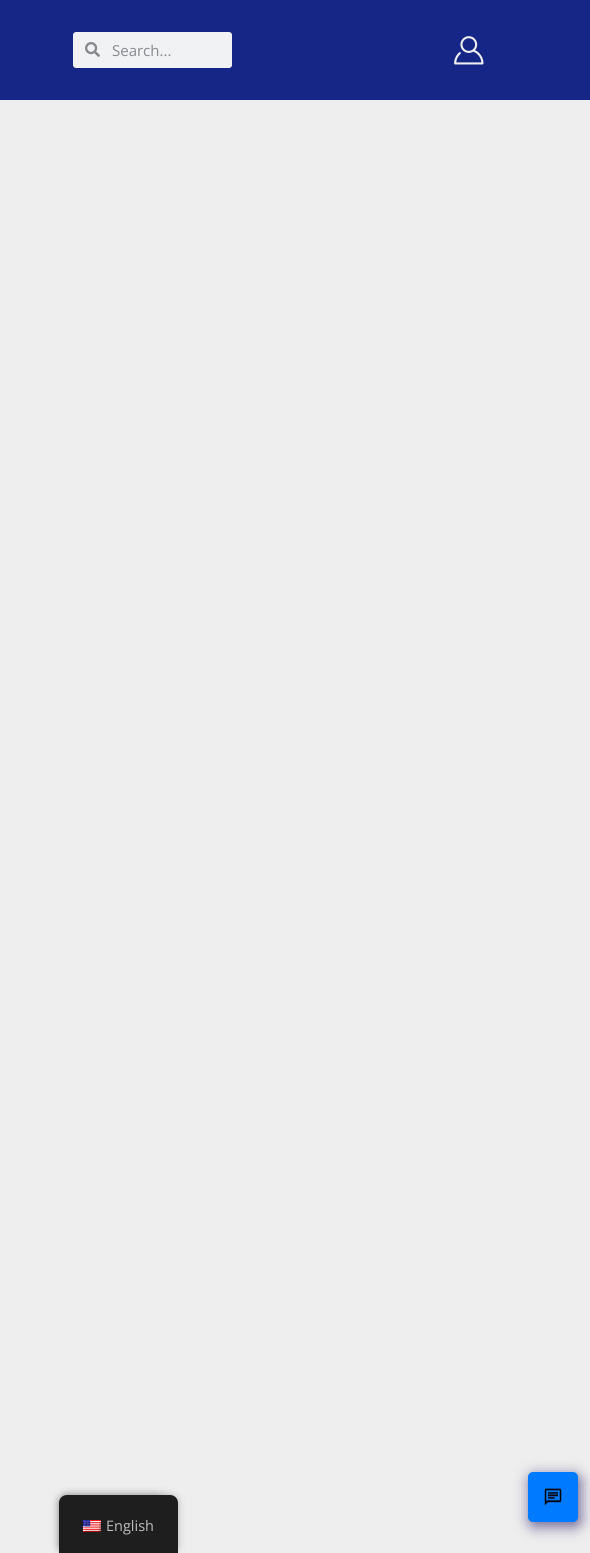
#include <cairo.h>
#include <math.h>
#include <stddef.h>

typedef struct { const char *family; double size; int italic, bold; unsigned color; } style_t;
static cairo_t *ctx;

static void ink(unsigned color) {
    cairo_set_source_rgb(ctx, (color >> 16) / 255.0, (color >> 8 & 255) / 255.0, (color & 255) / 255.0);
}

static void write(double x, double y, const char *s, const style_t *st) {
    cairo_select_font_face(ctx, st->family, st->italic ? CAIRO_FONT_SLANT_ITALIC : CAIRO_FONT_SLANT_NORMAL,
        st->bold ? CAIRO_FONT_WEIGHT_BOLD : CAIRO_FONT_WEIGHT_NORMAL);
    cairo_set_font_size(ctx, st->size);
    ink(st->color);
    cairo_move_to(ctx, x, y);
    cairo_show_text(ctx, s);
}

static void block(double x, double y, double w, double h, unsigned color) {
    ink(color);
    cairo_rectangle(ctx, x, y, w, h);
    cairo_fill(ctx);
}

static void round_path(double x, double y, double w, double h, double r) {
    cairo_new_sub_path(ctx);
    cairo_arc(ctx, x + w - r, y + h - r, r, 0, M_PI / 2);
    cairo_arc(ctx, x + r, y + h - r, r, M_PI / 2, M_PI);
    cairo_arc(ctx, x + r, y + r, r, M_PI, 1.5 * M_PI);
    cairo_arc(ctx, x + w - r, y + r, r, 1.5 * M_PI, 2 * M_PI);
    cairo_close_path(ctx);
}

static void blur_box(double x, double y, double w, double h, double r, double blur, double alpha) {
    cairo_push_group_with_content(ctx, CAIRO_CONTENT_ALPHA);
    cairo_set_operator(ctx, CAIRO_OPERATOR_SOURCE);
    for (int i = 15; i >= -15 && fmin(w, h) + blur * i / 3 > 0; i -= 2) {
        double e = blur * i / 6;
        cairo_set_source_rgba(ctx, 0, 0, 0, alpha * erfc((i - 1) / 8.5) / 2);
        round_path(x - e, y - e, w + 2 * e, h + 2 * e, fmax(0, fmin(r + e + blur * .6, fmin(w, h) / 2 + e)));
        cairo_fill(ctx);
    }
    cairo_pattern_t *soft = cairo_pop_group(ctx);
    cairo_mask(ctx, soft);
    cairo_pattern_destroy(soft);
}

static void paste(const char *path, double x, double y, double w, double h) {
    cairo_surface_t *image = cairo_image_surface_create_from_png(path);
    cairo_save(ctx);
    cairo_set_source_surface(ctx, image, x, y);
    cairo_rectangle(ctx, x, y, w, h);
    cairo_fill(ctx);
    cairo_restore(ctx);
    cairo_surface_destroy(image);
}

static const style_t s1 = {"Open Sans", 15, 0, 0, 0x868a8e};
static const style_t s2 = {"Open Sans", 14.5, 0, 0, 0xbdbdbd};

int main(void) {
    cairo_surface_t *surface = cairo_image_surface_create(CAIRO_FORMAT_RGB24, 590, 1553);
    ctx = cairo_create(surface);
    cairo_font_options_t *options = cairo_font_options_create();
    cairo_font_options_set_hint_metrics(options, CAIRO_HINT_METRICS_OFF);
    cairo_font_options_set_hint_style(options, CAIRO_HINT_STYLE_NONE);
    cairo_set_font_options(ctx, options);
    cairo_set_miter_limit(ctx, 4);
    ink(0x162687);
    cairo_paint(ctx);
    ink(0xf1f2f3);
    round_path(73, 32, 159, 36, 3);
    cairo_fill(ctx);
    paste("pic1.png", 85, 42, 15, 15);
    write(112, 56, "Search...", &s1);
    paste("pic2.png", 454, 36, 30, 29);
    block(0, 100, 590, 1453, 0xeeeeee);
    ink(0x000000);
    blur_box(59, 1495, 105, 58, 8, 4, 0.25);
    ink(0x665c8f);
    blur_box(530, 1476, 50, 50, 5, 7.5, 1);
    ink(0x007bff);
    round_path(528, 1472, 50, 50, 5);
    cairo_fill(ctx);
    paste("pic3.png", 544, 1488, 18, 18);
    ink(0x000000);
    blur_box(59, 1495, 119, 58, 8, 4, 0.25);
    ink(0x1e1e1e);
    cairo_new_path(ctx);
    cairo_move_to(ctx, 67, 1495);
    cairo_line_to(ctx, 170, 1495);
    cairo_curve_to(ctx, 174.5, 1495, 178, 1498.5, 178, 1503);
    cairo_line_to(ctx, 178, 1553);
    cairo_line_to(ctx, 59, 1553);
    cairo_line_to(ctx, 59, 1503);
    cairo_curve_to(ctx, 59, 1498.5, 62.5, 1495, 67, 1495);
    cairo_close_path(ctx);
    cairo_fill(ctx);
    paste("pic4.png", 83, 1520, 18, 12);
    write(106, 1531, "English", &s2);
    cairo_surface_write_to_png(surface, "screenshot.png");
    cairo_font_options_destroy(options);
    cairo_destroy(ctx);
    cairo_surface_destroy(surface);
    return 0;
}
